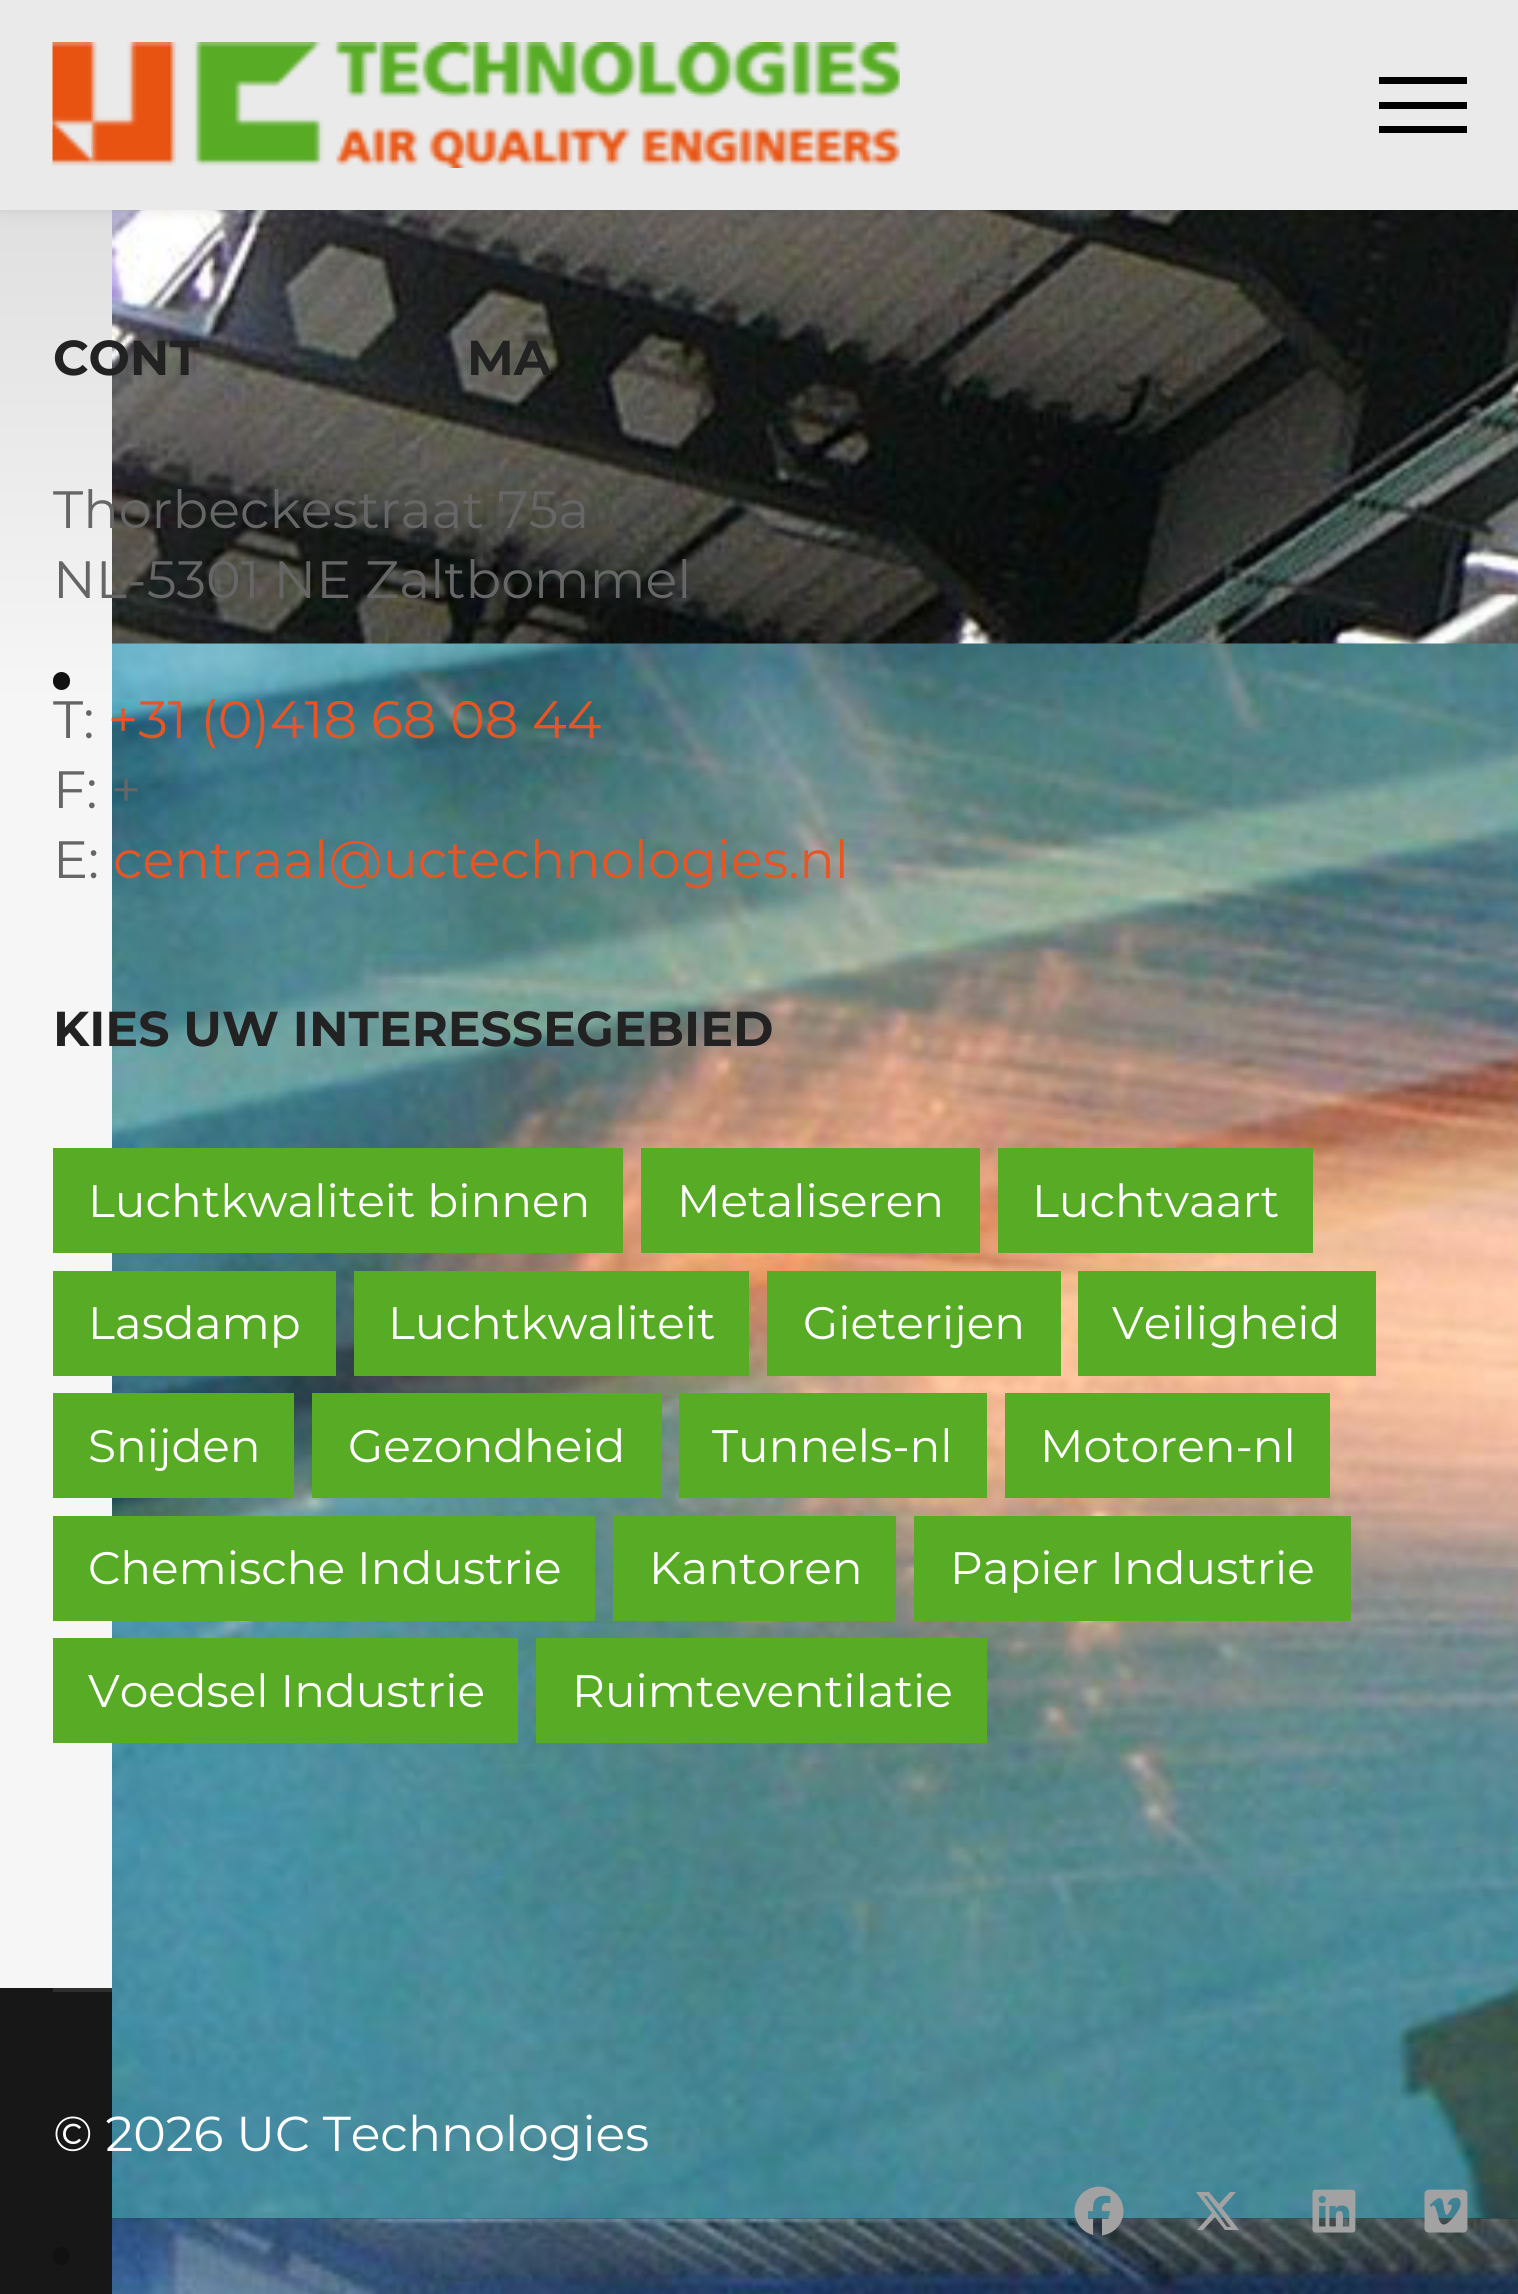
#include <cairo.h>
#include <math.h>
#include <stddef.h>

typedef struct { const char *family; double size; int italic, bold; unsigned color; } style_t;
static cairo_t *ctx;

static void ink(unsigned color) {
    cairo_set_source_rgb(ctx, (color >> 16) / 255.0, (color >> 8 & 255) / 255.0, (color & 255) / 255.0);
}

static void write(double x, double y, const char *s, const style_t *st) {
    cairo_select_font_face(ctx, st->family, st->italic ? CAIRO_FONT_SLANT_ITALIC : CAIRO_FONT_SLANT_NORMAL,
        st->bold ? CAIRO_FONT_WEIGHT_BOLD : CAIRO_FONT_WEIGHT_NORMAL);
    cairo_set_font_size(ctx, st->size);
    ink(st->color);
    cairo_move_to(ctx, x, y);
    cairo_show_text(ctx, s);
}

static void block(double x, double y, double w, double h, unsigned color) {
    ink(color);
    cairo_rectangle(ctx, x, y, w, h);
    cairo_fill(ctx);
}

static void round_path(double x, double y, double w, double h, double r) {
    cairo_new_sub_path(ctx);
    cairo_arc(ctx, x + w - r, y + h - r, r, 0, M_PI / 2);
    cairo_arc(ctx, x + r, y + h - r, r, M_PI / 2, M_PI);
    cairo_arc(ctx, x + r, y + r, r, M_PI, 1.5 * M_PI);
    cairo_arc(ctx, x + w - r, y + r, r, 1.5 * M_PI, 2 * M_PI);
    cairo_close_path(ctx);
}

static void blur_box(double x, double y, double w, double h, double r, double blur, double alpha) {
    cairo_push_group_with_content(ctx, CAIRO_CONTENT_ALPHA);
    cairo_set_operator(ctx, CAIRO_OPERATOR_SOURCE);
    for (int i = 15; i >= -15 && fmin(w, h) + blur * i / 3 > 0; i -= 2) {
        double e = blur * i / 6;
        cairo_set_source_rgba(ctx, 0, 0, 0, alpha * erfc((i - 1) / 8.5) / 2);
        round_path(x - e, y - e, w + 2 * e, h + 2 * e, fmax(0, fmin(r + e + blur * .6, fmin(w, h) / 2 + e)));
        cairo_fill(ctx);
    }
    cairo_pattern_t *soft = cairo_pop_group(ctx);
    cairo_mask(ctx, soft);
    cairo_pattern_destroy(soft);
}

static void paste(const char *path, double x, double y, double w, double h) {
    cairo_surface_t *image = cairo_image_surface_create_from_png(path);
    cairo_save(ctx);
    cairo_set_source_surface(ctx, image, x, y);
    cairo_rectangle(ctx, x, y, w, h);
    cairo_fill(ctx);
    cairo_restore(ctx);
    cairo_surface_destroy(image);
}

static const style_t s1 = {"Montserrat", 49, 0, 1, 0x222222};
static const style_t s2 = {"Montserrat", 52.5, 0, 0, 0x666666};
static const style_t s3 = {"Montserrat", 52.5, 0, 0, 0xe75525};
static const style_t s4 = {"Montserrat", 45.5, 0, 0, 0xffffff};
static const style_t s5 = {"Montserrat", 49, 0, 0, 0xffffff};

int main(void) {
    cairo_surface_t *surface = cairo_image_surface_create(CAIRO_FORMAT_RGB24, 1518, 2294);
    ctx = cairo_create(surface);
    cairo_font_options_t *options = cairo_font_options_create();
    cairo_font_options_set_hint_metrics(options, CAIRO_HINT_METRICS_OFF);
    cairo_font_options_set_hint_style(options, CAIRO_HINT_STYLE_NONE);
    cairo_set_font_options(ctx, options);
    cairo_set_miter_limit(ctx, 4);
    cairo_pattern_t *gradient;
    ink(0xffffff);
    cairo_paint(ctx);
    paste("pic2.png", 112, 210, 1406, 434);
    gradient = cairo_pattern_create_linear(760, 1988, 760, 154);
    cairo_pattern_add_color_stop_rgba(gradient, 0.7, 0.965, 0.965, 0.965, 1);
    cairo_pattern_add_color_stop_rgba(gradient, 1, 0.867, 0.867, 0.867, 1);
    cairo_set_source(ctx, gradient);
    cairo_pattern_destroy(gradient);
    cairo_rectangle(ctx, 0, 210, 112, 1778);
    cairo_fill(ctx);
    ink(0x000000);
    blur_box(0, 0, 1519, 210, 0, 7, 0.1);
    block(0, 0, 1518, 210, 0xeaeaea);
    paste("pic1.png", 52, 42, 848, 126);
    block(1379, 77, 88, 7, 0x000000);
    block(1379, 102, 88, 7, 0x000000);
    block(1379, 126, 88, 7, 0x000000);
    ink(0x111111);
    round_path(53, 672, 17, 18, 8.5);
    cairo_fill(ctx);
    block(0, 1988, 1518, 306, 0x171717);
    paste("pic3.png", 112, 643, 1406, 1576);
    ink(0x111111);
    round_path(53, 2247, 17, 18, 8.5);
    cairo_fill(ctx);
    paste("pic4.png", 112, 2218, 1406, 76);
    write(53, 375, "CONT", &s1);
    write(467, 375, "MA", &s1);
    write(53, 528, "Thorbeckestraat 75a", &s2);
    write(53, 598, "NL-5301 NE Zaltbommel", &s2);
    write(53, 738, "T:", &s2);
    write(108, 738, "+31 (0)418 68 08 44", &s3);
    write(53, 808, "F: +", &s2);
    write(53, 878, "E:", &s2);
    write(113, 878, "centraal@uctechnologies.nl", &s3);
    write(53, 1046, "KIES UW INTERESSEGEBIED", &s1);
    block(53, 1148, 570, 105, 0x58ac25);
    write(88, 1217, "Luchtkwaliteit binnen", &s4);
    block(641, 1148, 339, 105, 0x58ac25);
    write(677, 1217, "Metaliseren", &s4);
    block(998, 1148, 315, 105, 0x58ac25);
    write(1032, 1217, "Luchtvaart", &s4);
    block(53, 1271, 283, 105, 0x58ac25);
    write(88, 1339, "Lasdamp", &s4);
    block(354, 1271, 395, 105, 0x58ac25);
    write(388, 1339, "Luchtkwaliteit", &s4);
    block(767, 1271, 294, 105, 0x58ac25);
    write(803, 1339, "Gieterijen", &s4);
    block(1078, 1271, 298, 105, 0x58ac25);
    write(1112, 1339, "Veiligheid", &s4);
    block(53, 1393, 241, 105, 0x58ac25);
    write(88, 1462, "Snijden", &s4);
    block(312, 1393, 350, 105, 0x58ac25);
    write(348, 1462, "Gezondheid", &s4);
    block(679, 1393, 308, 105, 0x58ac25);
    write(712, 1462, "Tunnels-nl", &s4);
    block(1005, 1393, 325, 105, 0x58ac25);
    write(1040, 1462, "Motoren-nl", &s4);
    block(53, 1516, 542, 105, 0x58ac25);
    write(88, 1584, "Chemische Industrie", &s4);
    block(613, 1516, 283, 105, 0x58ac25);
    write(649, 1584, "Kantoren", &s4);
    block(914, 1516, 437, 105, 0x58ac25);
    write(950, 1584, "Papier Industrie", &s4);
    block(53, 1638, 465, 105, 0x58ac25);
    write(88, 1707, "Voedsel Industrie", &s4);
    block(536, 1638, 451, 105, 0x58ac25);
    write(572, 1707, "Ruimteventilatie", &s4);
    block(53, 1988, 59, 4, 0x2e2e2e);
    write(53, 2151, "© 2026 UC Technologies", &s5);
    paste("pic5.png", 1074, 2186, 50, 50);
    ink(0xa2a2a2);
    cairo_new_path(ctx);
    cairo_move_to(ctx, 1230, 2192);
    cairo_line_to(ctx, 1236, 2192);
    cairo_line_to(ctx, 1222, 2208);
    cairo_line_to(ctx, 1239, 2230);
    cairo_line_to(ctx, 1225, 2230);
    cairo_line_to(ctx, 1215, 2217);
    cairo_line_to(ctx, 1203, 2230);
    cairo_line_to(ctx, 1197, 2230);
    cairo_line_to(ctx, 1212, 2213);
    cairo_line_to(ctx, 1196, 2192);
    cairo_line_to(ctx, 1209, 2192);
    cairo_line_to(ctx, 1219, 2204);
    cairo_close_path(ctx);
    cairo_move_to(ctx, 1227, 2227);
    cairo_line_to(ctx, 1231, 2227);
    cairo_line_to(ctx, 1207, 2196);
    cairo_line_to(ctx, 1204, 2196);
    cairo_close_path(ctx);
    cairo_fill(ctx);
    paste("pic6.png", 1312, 2189, 44, 44);
    paste("pic7.png", 1424, 2189, 44, 44);
    cairo_surface_write_to_png(surface, "screenshot.png");
    cairo_font_options_destroy(options);
    cairo_destroy(ctx);
    cairo_surface_destroy(surface);
    return 0;
}
